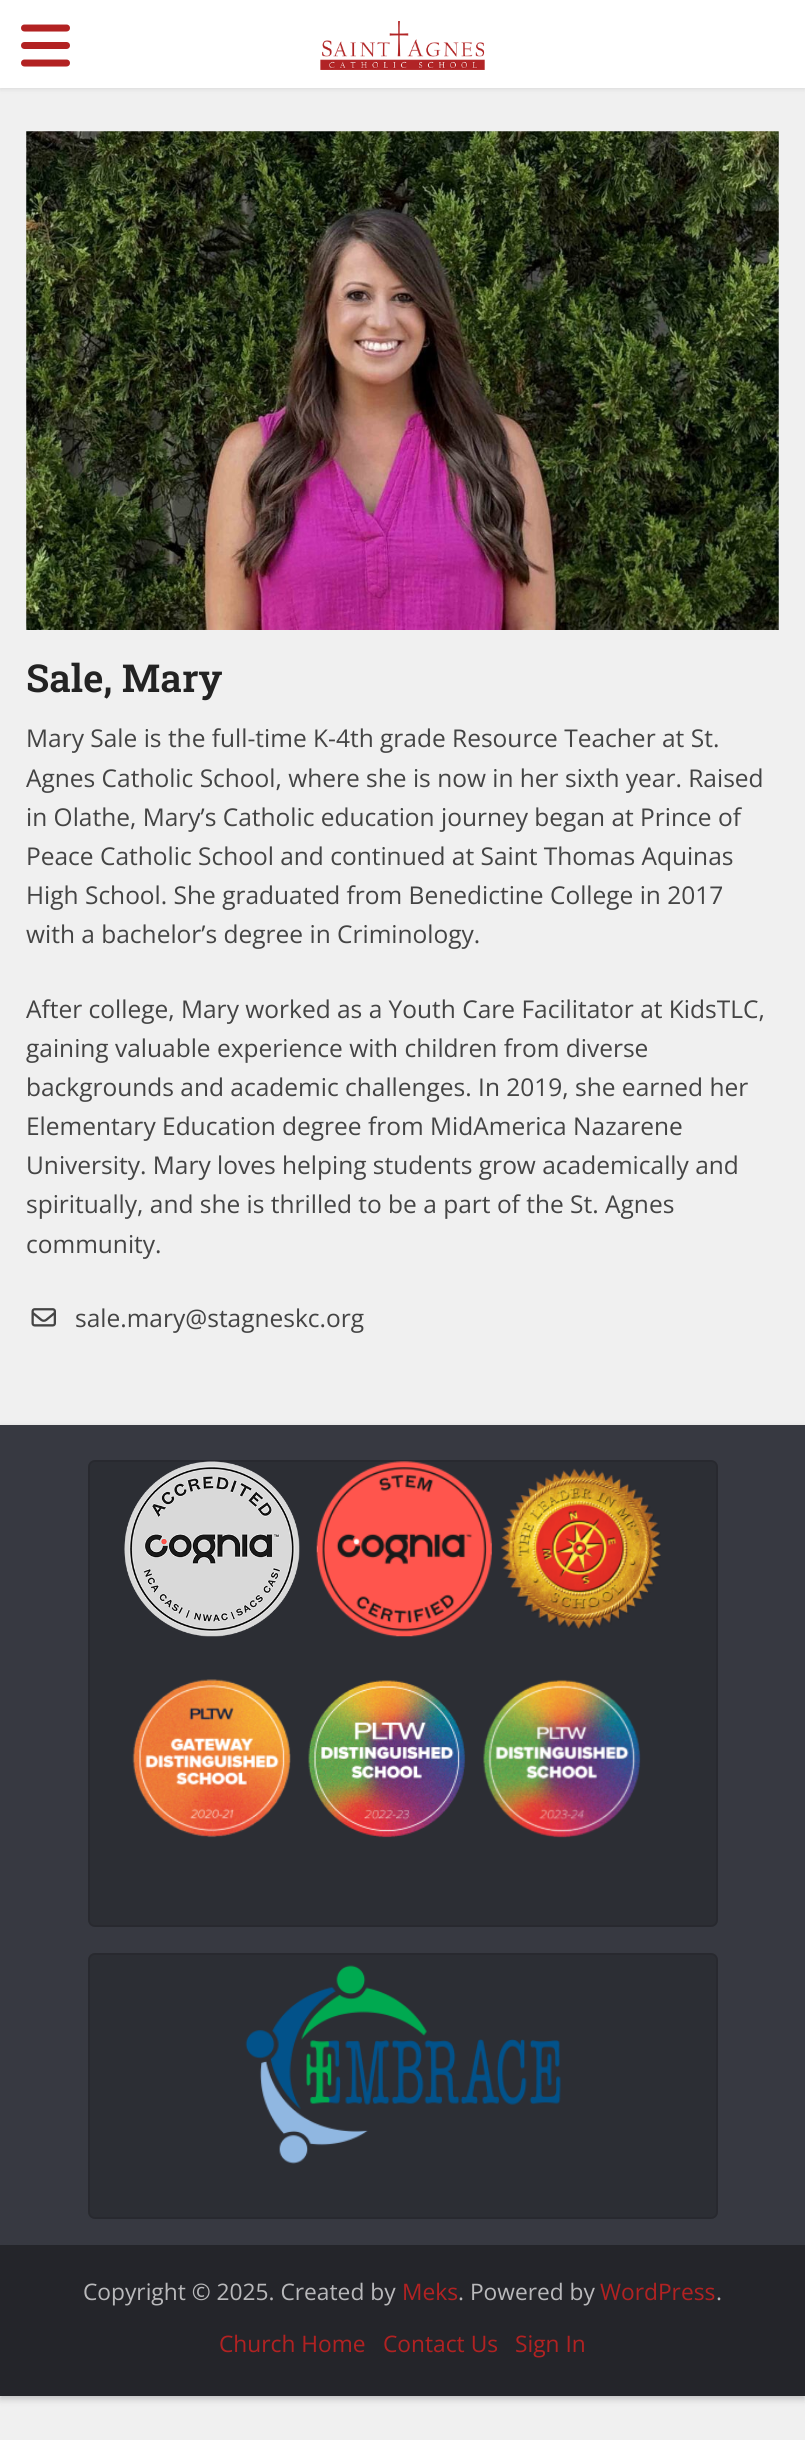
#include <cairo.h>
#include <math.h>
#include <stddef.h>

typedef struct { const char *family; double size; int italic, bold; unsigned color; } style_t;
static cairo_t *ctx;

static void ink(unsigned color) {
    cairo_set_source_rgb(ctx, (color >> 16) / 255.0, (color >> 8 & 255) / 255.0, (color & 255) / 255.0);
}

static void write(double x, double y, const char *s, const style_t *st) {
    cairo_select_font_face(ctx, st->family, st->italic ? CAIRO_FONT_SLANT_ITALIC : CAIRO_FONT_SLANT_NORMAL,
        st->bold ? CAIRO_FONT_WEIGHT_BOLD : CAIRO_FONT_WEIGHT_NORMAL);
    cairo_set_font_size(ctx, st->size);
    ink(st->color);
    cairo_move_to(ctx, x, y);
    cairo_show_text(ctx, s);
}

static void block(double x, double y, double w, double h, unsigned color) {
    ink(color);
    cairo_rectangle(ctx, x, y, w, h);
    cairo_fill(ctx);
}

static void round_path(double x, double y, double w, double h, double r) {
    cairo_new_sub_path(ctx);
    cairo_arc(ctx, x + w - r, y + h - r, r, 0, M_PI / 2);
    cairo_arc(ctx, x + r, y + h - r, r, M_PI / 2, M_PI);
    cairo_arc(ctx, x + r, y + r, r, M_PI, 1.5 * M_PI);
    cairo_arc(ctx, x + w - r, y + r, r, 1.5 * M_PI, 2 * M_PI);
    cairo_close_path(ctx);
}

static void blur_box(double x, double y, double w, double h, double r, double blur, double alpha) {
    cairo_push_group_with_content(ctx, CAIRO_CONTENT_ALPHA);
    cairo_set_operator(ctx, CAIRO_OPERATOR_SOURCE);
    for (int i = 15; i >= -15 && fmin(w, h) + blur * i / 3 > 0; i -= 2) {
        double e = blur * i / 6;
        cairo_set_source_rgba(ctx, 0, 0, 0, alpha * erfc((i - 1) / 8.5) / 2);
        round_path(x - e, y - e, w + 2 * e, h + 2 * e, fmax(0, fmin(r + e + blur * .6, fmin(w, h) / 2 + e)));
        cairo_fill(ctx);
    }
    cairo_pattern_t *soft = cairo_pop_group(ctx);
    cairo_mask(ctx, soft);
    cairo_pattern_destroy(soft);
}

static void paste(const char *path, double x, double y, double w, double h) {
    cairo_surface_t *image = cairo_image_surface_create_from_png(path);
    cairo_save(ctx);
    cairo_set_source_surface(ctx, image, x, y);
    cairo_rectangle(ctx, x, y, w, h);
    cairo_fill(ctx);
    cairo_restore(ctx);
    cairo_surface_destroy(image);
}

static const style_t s1 = {"Roboto Slab SemiBold", 38.5, 0, 0, 0x232323};
static const style_t s2 = {"Open Sans", 24.5, 0, 0, 0x444444};
static const style_t s3 = {"Open Sans", 22.75, 0, 0, 0xb9b9bb};
static const style_t s4 = {"Open Sans", 22.75, 0, 0, 0xb22222};

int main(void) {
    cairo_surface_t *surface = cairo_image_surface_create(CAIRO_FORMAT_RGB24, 805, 2440);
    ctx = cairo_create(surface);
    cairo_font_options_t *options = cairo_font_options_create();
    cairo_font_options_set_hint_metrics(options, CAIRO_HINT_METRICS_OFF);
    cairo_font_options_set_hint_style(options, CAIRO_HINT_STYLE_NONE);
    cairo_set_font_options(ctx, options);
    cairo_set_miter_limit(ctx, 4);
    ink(0xf0f0f0);
    cairo_paint(ctx);
    ink(0x000000);
    blur_box(0, 2, 805, 87, 0, 2.5, 0.1);
    block(0, 0, 805, 88, 0xffffff);
    paste("pic1.png", 21, 24, 49, 43);
    paste("pic2.png", 320, 21, 165, 49);
    paste("pic3.png", 26, 131, 753, 499);
    write(26, 692, "Sale, Mary", &s1);
    write(26, 747, "Mary Sale is the full-time K-4th grade Resource Teacher at St.", &s2);
    write(26, 787, "Agnes Catholic School, where she is now in her sixth year. Raised", &s2);
    write(26, 826, "in Olathe, Mary’s Catholic education journey began at Prince of", &s2);
    write(26, 865, "Peace Catholic School and continued at Saint Thomas Aquinas", &s2);
    write(26, 904, "High School. She graduated from Benedictine College in 2017", &s2);
    write(26, 943, "with a bachelor’s degree in Criminology.", &s2);
    write(26, 1018, "After college, Mary worked as a Youth Care Facilitator at KidsTLC,", &s2);
    write(26, 1057, "gaining valuable experience with children from diverse", &s2);
    write(26, 1096, "backgrounds and academic challenges. In 2019, she earned her", &s2);
    write(26, 1135, "Elementary Education degree from MidAmerica Nazarene", &s2);
    write(26, 1174, "University. Mary loves helping students grow academically and", &s2);
    write(26, 1213, "spiritually, and she is thrilled to be a part of the St. Agnes", &s2);
    write(26, 1253, "community.", &s2);
    paste("pic4.png", 31, 1308, 25, 19);
    write(75, 1327, "sale.mary@stagneskc.org", &s2);
    ink(0x000000);
    blur_box(0, 1428, 805, 971, 0, 3.5, 0.2);
    block(0, 1425, 805, 820, 0x373941);
    ink(0x2c2e34);
    round_path(88, 1460, 630, 467, 7);
    cairo_fill(ctx);
    round_path(89, 1461, 628, 465, 6);
    cairo_set_source_rgba(ctx, 0, 0, 0, 0.1);
    cairo_stroke(ctx);
    paste("pic5.png", 124, 1461, 176, 176);
    paste("pic6.png", 316, 1461, 176, 176);
    paste("pic7.png", 501, 1468, 160, 162);
    paste("pic8.png", 132, 1679, 159, 159);
    paste("pic9.png", 308, 1680, 158, 158);
    paste("pic10.png", 483, 1679, 158, 159);
    ink(0x2c2e34);
    round_path(88, 1953, 630, 266, 7);
    cairo_fill(ctx);
    round_path(89, 1954, 628, 264, 6);
    cairo_set_source_rgba(ctx, 0, 0, 0, 0.1);
    cairo_stroke(ctx);
    paste("pic11.png", 245, 1965, 316, 199);
    block(0, 2245, 805, 151, 0x24252a);
    write(83, 2300, "Copyright © 2025. Created by", &s3);
    write(402, 2300, "Meks", &s4);
    write(458, 2300, ". Powered by", &s3);
    write(600, 2300, "WordPress", &s4);
    write(716, 2300, ".", &s3);
    write(219, 2352, "Church Home", &s4);
    write(383, 2352, "Contact Us", &s4);
    write(515, 2352, "Sign In", &s4);
    cairo_surface_write_to_png(surface, "screenshot.png");
    cairo_font_options_destroy(options);
    cairo_destroy(ctx);
    cairo_surface_destroy(surface);
    return 0;
}
